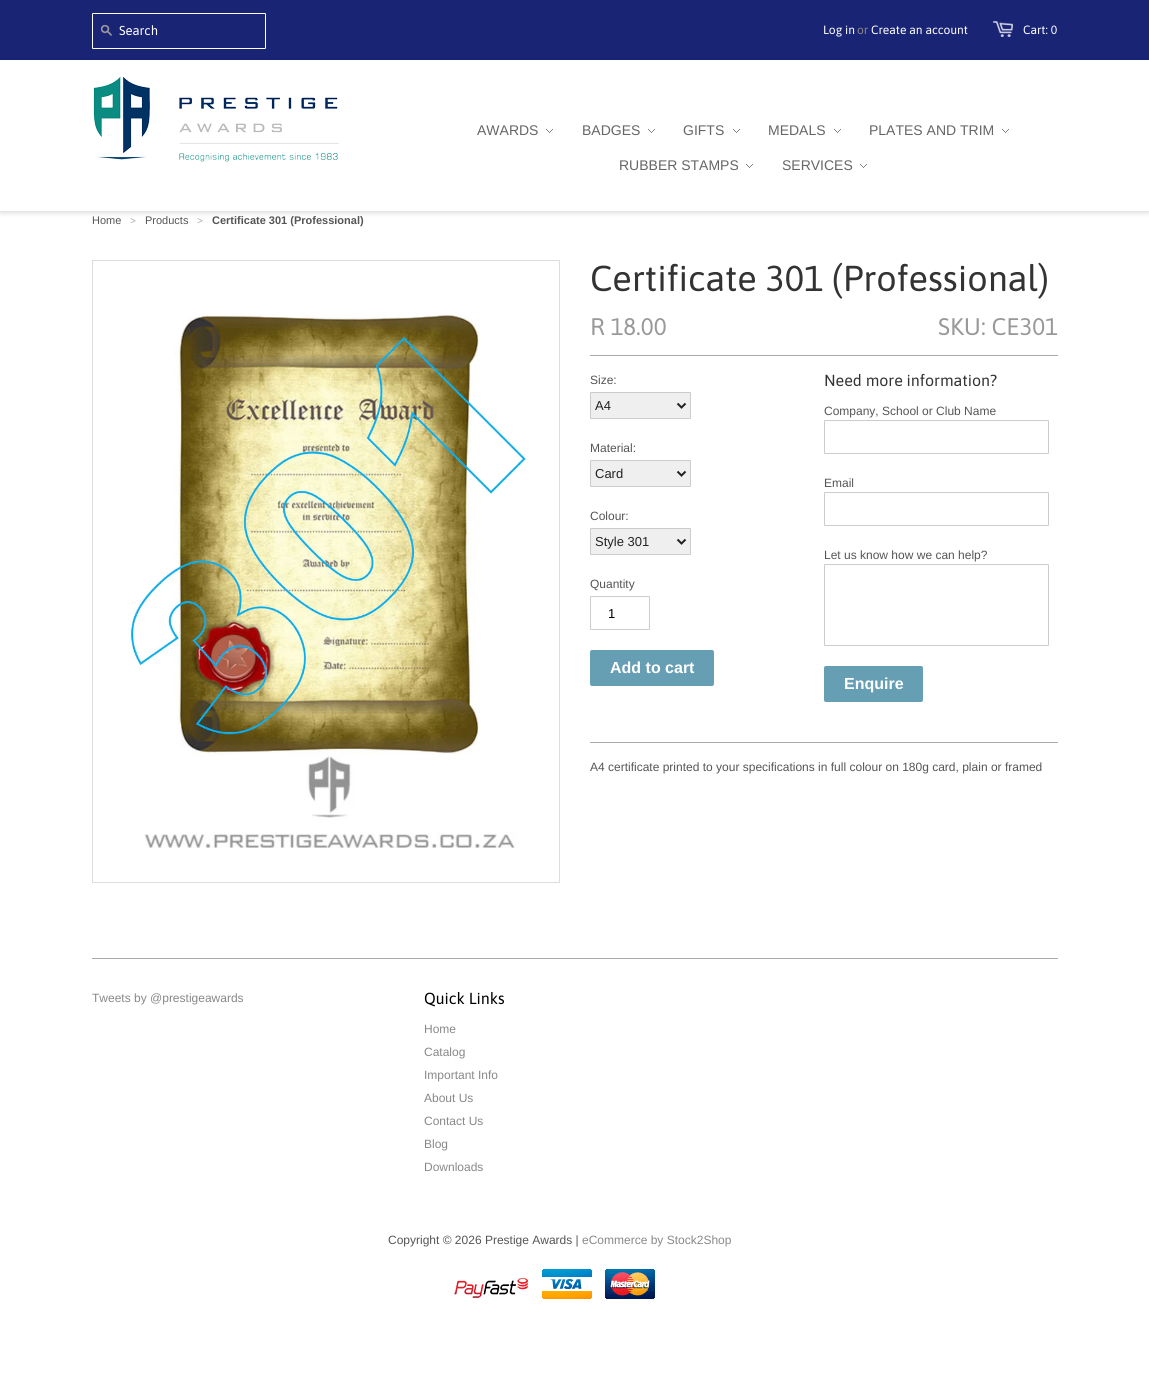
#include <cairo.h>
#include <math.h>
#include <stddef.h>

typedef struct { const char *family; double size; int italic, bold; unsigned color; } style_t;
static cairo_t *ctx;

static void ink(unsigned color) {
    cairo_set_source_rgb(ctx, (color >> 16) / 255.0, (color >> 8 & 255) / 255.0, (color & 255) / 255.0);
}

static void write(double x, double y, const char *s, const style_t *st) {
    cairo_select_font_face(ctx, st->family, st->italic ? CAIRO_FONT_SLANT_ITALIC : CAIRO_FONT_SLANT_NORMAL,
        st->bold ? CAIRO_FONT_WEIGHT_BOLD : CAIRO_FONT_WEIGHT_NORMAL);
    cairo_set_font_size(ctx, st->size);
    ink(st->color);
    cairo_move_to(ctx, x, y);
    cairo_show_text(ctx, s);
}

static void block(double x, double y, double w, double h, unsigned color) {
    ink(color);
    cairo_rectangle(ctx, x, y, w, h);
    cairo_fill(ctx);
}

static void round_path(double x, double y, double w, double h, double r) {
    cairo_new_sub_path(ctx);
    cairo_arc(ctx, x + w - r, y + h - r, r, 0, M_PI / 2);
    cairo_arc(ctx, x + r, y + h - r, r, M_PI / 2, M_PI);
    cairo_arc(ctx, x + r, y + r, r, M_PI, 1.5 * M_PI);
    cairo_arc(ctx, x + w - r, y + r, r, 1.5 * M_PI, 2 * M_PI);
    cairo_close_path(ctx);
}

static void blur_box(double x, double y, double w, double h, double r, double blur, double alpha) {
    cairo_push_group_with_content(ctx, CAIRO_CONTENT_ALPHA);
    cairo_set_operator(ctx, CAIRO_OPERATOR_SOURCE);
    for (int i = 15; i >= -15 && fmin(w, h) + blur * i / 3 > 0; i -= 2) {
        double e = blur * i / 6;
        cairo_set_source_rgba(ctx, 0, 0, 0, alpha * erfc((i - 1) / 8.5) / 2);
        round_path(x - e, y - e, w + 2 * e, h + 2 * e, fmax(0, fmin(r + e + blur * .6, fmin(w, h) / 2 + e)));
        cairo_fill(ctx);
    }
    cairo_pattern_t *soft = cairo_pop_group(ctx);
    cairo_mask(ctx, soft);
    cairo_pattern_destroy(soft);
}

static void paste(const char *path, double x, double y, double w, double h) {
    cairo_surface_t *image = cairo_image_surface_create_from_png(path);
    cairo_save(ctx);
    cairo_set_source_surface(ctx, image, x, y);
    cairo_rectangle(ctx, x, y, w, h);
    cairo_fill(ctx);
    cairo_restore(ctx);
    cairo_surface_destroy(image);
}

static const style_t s1 = {"Asap", 13, 0, 0, 0xffffff};
static const style_t s2 = {"Asap", 12, 0, 0, 0xffffff};
static const style_t s3 = {"Asap", 12, 0, 0, 0x888888};
static const style_t s4 = {"Liberation Sans", 14, 0, 0, 0x666666};
static const style_t s5 = {"Liberation Sans", 11, 0, 0, 0x555555};
static const style_t s6 = {"Liberation Sans", 10, 0, 0, 0xaaaaaa};
static const style_t s7 = {"Liberation Sans", 11, 0, 1, 0x555555};
static const style_t s8 = {"Asap", 36, 0, 0, 0x333333};
static const style_t s9 = {"Asap", 24, 0, 0, 0x999999};
static const style_t s10 = {"Liberation Sans", 12, 0, 0, 0x555555};
static const style_t s11 = {"Liberation Sans", 13, 0, 0, 0x222222};
static const style_t s12 = {"Liberation Sans", 13, 0, 0, 0x000000};
static const style_t s13 = {"Liberation Sans", 16, 0, 1, 0xffffff};
static const style_t s14 = {"Asap", 16, 0, 0, 0x333333};
static const style_t s15 = {"Liberation Sans", 12, 0, 0, 0x888888};
static const style_t s16 = {"Asap", 16, 0, 0, 0x000000};

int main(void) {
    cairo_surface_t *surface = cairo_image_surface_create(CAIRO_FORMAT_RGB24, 1149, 1378);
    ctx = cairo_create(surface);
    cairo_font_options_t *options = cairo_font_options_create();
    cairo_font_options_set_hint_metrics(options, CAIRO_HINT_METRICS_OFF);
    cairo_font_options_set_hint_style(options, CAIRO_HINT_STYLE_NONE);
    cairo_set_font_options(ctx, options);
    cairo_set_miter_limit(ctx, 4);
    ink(0xffffff);
    cairo_paint(ctx);
    block(0, 0, 1149, 60, 0x1a2475);
    round_path(92.5, 13.5, 173, 35, 0.5);
    ink(0xffffff);
    cairo_set_line_width(ctx, 1);
    cairo_stroke(ctx);
    paste("pic1.png", 101, 25, 11, 11);
    write(119, 35, "Search", &s1);
    write(823, 34, "Log in", &s2);
    write(857, 34, "or", &s3);
    write(871, 34, "Create an account", &s2);
    paste("pic2.png", 993, 21, 20, 16);
    write(1023, 34, "Cart: 0", &s2);
    cairo_save(ctx);
    cairo_set_fill_rule(ctx, CAIRO_FILL_RULE_EVEN_ODD);
    cairo_new_path(ctx);
    cairo_move_to(ctx, 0, 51);
    cairo_line_to(ctx, 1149, 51);
    cairo_line_to(ctx, 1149, 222);
    cairo_line_to(ctx, 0, 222);
    cairo_close_path(ctx);
    cairo_move_to(ctx, 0, 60);
    cairo_line_to(ctx, 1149, 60);
    cairo_line_to(ctx, 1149, 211);
    cairo_line_to(ctx, 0, 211);
    cairo_close_path(ctx);
    cairo_clip(ctx);
    ink(0x000000);
    blur_box(0, 61, 1149, 151, 0, 3, 0.18);
    cairo_restore(ctx);
    paste("pic3.png", 93, 76, 246, 86);
    paste("pic4.png", 546, 129, 7, 4);
    write(477, 135, "AWARDS", &s4);
    paste("pic4.png", 648, 129, 7, 4);
    write(582, 135, "BADGES", &s4);
    paste("pic4.png", 733, 129, 7, 4);
    write(683, 135, "GIFTS", &s4);
    paste("pic4.png", 834, 129, 7, 4);
    write(768, 135, "MEDALS", &s4);
    paste("pic4.png", 1002, 129, 7, 4);
    write(869, 135, "PLATES AND TRIM", &s4);
    paste("pic4.png", 746, 164, 7, 4);
    write(619, 170, "RUBBER STAMPS", &s4);
    paste("pic4.png", 860, 164, 7, 4);
    write(782, 170, "SERVICES", &s4);
    write(92, 224, "Home", &s5);
    write(130, 224, ">", &s6);
    write(145, 224, "Products", &s5);
    write(197, 224, ">", &s6);
    write(212, 224, "Certificate 301 (Professional)", &s7);
    cairo_rectangle(ctx, 92.5, 260.5, 467, 622);
    ink(0xdddddd);
    cairo_stroke(ctx);
    paste("pic5.png", 128, 314, 401, 534);
    write(590, 291, "Certificate 301 (Professional)", &s8);
    write(590, 335, "R 18.00", &s9);
    write(938, 335, "SKU: CE301", &s9);
    block(590, 355, 468, 1, 0xaaaaaa);
    block(590, 742, 468, 1, 0xaaaaaa);
    write(590, 384, "Size:", &s10);
    ink(0xefefef);
    round_path(590.5, 392.5, 100, 26, 0.5);
    cairo_fill_preserve(ctx);
    ink(0xcccccc);
    cairo_stroke(ctx);
    cairo_new_path(ctx);
    cairo_move_to(ctx, 677.5, 403.5);
    cairo_line_to(ctx, 681.5, 407.5);
    cairo_line_to(ctx, 685.5, 403.5);
    ink(0x222222);
    cairo_set_line_width(ctx, 2);
    cairo_stroke(ctx);
    write(595, 410, "A4", &s11);
    write(590, 452, "Material:", &s10);
    ink(0xefefef);
    round_path(590.5, 460.5, 100, 26, 0.5);
    cairo_fill_preserve(ctx);
    ink(0xcccccc);
    cairo_set_line_width(ctx, 1);
    cairo_stroke(ctx);
    cairo_new_path(ctx);
    cairo_move_to(ctx, 677.5, 471.5);
    cairo_line_to(ctx, 681.5, 475.5);
    cairo_line_to(ctx, 685.5, 471.5);
    ink(0x222222);
    cairo_set_line_width(ctx, 2);
    cairo_stroke(ctx);
    write(595, 478, "Card", &s11);
    write(590, 520, "Colour:", &s10);
    ink(0xefefef);
    round_path(590.5, 528.5, 100, 26, 0.5);
    cairo_fill_preserve(ctx);
    ink(0xcccccc);
    cairo_set_line_width(ctx, 1);
    cairo_stroke(ctx);
    cairo_new_path(ctx);
    cairo_move_to(ctx, 677.5, 539.5);
    cairo_line_to(ctx, 681.5, 543.5);
    cairo_line_to(ctx, 685.5, 539.5);
    ink(0x222222);
    cairo_set_line_width(ctx, 2);
    cairo_stroke(ctx);
    write(595, 546, "Style 301", &s11);
    write(590, 588, "Quantity", &s10);
    round_path(590.5, 596.5, 59, 33, 0.5);
    ink(0xcccccc);
    cairo_set_line_width(ctx, 1);
    cairo_stroke(ctx);
    write(608, 618, "1", &s12);
    ink(0x669eb4);
    round_path(590, 650, 124, 36, 2);
    cairo_fill(ctx);
    write(610, 673, "Add to cart", &s13);
    write(824, 386, "Need more information?", &s14);
    write(824, 415, "Company, School or Club Name", &s10);
    round_path(824.5, 420.5, 224, 33, 0.5);
    ink(0xcccccc);
    cairo_stroke(ctx);
    write(824, 487, "Email", &s10);
    round_path(824.5, 492.5, 224, 33, 0.5);
    ink(0xcccccc);
    cairo_stroke(ctx);
    write(824, 559, "Let us know how we can help?", &s10);
    round_path(824.5, 564.5, 224, 81, 0.5);
    ink(0xcccccc);
    cairo_stroke(ctx);
    ink(0x669eb4);
    round_path(824, 666, 99, 36, 2);
    cairo_fill(ctx);
    write(844, 689, "Enquire", &s13);
    write(590, 771, "A4 certificate printed to your specifications in full colour on 180g card, plain or framed", &s10);
    block(92, 958, 966, 1, 0xaaaaaa);
    write(92, 1002, "Tweets by @prestigeawards", &s15);
    write(424, 1004, "Quick Links", &s16);
    write(424, 1033, "Home", &s15);
    write(424, 1056, "Catalog", &s15);
    write(424, 1079, "Important Info", &s15);
    write(424, 1102, "About Us", &s15);
    write(424, 1125, "Contact Us", &s15);
    write(424, 1148, "Blog", &s15);
    write(424, 1171, "Downloads", &s15);
    write(388, 1244, "Copyright © 2026 Prestige Awards |", &s10);
    write(582, 1244, "eCommerce by Stock2Shop", &s15);
    paste("pic6.png", 454, 1278, 74, 20);
    paste("pic7.png", 542, 1269, 50, 30);
    paste("pic8.png", 605, 1269, 50, 30);
    cairo_surface_write_to_png(surface, "screenshot.png");
    cairo_font_options_destroy(options);
    cairo_destroy(ctx);
    cairo_surface_destroy(surface);
    return 0;
}
